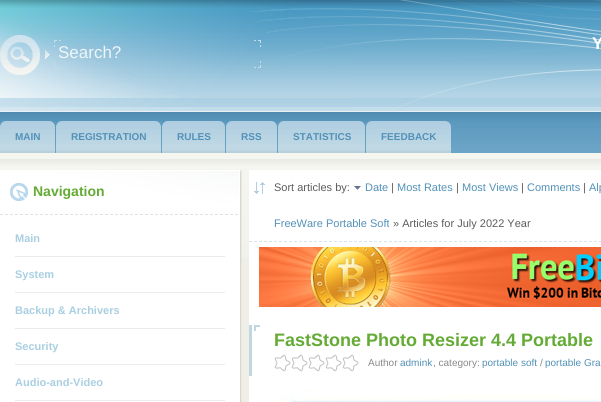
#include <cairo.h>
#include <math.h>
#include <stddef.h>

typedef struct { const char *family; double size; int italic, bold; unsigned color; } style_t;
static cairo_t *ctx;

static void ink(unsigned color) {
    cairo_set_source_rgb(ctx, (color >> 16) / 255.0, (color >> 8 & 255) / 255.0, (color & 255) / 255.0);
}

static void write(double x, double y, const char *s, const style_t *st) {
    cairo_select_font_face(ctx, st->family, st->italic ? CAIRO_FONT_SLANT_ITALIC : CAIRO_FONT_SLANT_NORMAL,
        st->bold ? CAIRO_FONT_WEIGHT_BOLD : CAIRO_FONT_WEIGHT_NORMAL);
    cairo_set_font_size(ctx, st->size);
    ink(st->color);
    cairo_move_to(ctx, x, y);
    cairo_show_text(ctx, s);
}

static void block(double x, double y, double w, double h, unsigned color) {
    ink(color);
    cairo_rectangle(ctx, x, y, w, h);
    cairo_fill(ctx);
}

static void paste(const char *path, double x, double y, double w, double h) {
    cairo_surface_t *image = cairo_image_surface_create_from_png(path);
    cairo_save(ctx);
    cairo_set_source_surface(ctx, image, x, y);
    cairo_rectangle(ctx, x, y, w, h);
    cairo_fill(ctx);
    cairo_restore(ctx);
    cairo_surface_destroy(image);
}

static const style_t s1 = {"Liberation Sans", 17, 0, 1, 0xffffff};
static const style_t s2 = {"Liberation Sans", 17, 0, 0, 0xeef5f9};
static const style_t s3 = {"Liberation Sans", 10, 0, 1, 0x5291b8};
static const style_t s4 = {"Liberation Sans", 14, 0, 1, 0x64ab35};
static const style_t s5 = {"Liberation Sans", 11, 0, 1, 0xa9cfe1};
static const style_t s6 = {"Liberation Sans", 11, 0, 0, 0x5c5c5c};
static const style_t s7 = {"Liberation Sans", 11, 0, 0, 0x5291b8};
static const style_t s8 = {"Liberation Sans", 18, 0, 1, 0x64ab35};
static const style_t s9 = {"Liberation Sans", 10, 0, 0, 0x898989};
static const style_t s10 = {"Liberation Sans", 10, 0, 0, 0x5291b8};

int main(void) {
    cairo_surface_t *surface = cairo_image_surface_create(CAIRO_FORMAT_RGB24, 601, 402);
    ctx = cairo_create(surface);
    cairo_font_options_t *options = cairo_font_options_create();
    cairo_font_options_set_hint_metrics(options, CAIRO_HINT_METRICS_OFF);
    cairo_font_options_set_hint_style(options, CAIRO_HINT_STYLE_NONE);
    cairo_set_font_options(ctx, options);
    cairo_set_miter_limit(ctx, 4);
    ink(0xffffff);
    cairo_paint(ctx);
    paste("pic1.png", 0, 0, 601, 118);
    paste("pic2.png", 0, 0, 352, 112);
    paste("pic3.png", 246, 0, 355, 110);
    write(592, 49, "Y", &s1);
    paste("pic4.png", 45, 40, 216, 28);
    paste("pic5.png", 0, 35, 40, 40);
    write(58, 58, "Search?", &s2);
    paste("pic6.png", 55, 118, 546, 41);
    paste("pic7.png", 0, 118, 55, 41);
    paste("pic8.png", 50, 121, 5, 5);
    write(15, 140, "MAIN", &s3);
    paste("pic9.png", 56, 118, 105, 41);
    paste("pic10.png", 156, 121, 5, 5);
    write(71, 140, "REGISTRATION", &s3);
    paste("pic11.png", 162, 118, 63, 41);
    paste("pic8.png", 220, 121, 5, 5);
    write(177, 140, "RULES", &s3);
    paste("pic12.png", 226, 118, 51, 41);
    paste("pic13.png", 271, 121, 6, 5);
    write(241, 140, "RSS", &s3);
    paste("pic14.png", 278, 118, 87, 41);
    paste("pic8.png", 360, 121, 5, 5);
    write(293, 140, "STATISTICS", &s3);
    paste("pic15.png", 366, 118, 85, 41);
    paste("pic10.png", 446, 121, 5, 5);
    write(381, 140, "FEEDBACK", &s3);
    block(242, 258, 7, 144, 0xefefe7);
    paste("pic16.png", 0, 159, 601, 99);
    block(0, 215, 240, 43, 0xffffff);
    paste("pic17.png", 240, 215, 2, 187);
    paste("pic18.png", 0, 170, 242, 45);
    paste("pic19.png", 10, 183, 18, 18);
    write(33, 196, "Navigation", &s4);
    block(15, 256, 210, 1, 0xebebeb);
    write(15, 242, "Main", &s5);
    block(15, 292, 210, 1, 0xebebeb);
    write(15, 278, "System", &s5);
    block(15, 328, 210, 1, 0xebebeb);
    write(15, 314, "Backup & Archivers", &s5);
    block(15, 364, 210, 1, 0xebebeb);
    write(15, 350, "Security", &s5);
    block(15, 400, 210, 1, 0xebebeb);
    write(15, 386, "Audio-and-Video", &s5);
    block(249, 170, 352, 88, 0xffffff);
    paste("pic20.png", 254, 182, 11, 12);
    paste("pic21.png", 249, 241, 352, 1);
    write(274, 191, "Sort articles by:", &s6);
    paste("pic22.png", 354, 186, 7, 4);
    write(365, 191, "Date", &s7);
    write(391, 191, "|", &s6);
    write(397, 191, "Most Rates", &s7);
    write(456, 191, "|", &s6);
    write(462, 191, "Most Views", &s7);
    write(521, 191, "|", &s6);
    write(527, 191, "Comments", &s7);
    write(583, 191, "|", &s6);
    write(589, 191, "Alp", &s7);
    write(274, 227, "FreeWare Portable Soft", &s7);
    write(393, 227, "» Articles for July 2022 Year", &s6);
    paste("pic23.png", 259, 247, 342, 60);
    paste("pic24.png", 249, 325, 11, 51);
    write(274, 346, "FastStone Photo Resizer 4.4 Portable", &s8);
    paste("pic25.png", 274, 354, 85, 18);
    write(368, 366, "Author", &s9);
    write(400, 366, "admink", &s10);
    write(433, 366, ", category:", &s9);
    write(482, 366, "portable soft", &s10);
    write(540, 366, "/", &s9);
    write(545, 366, "portable Gra", &s10);
    paste("pic26.png", 281, 390, 320, 12);
    cairo_surface_write_to_png(surface, "screenshot.png");
    cairo_font_options_destroy(options);
    cairo_destroy(ctx);
    cairo_surface_destroy(surface);
    return 0;
}
